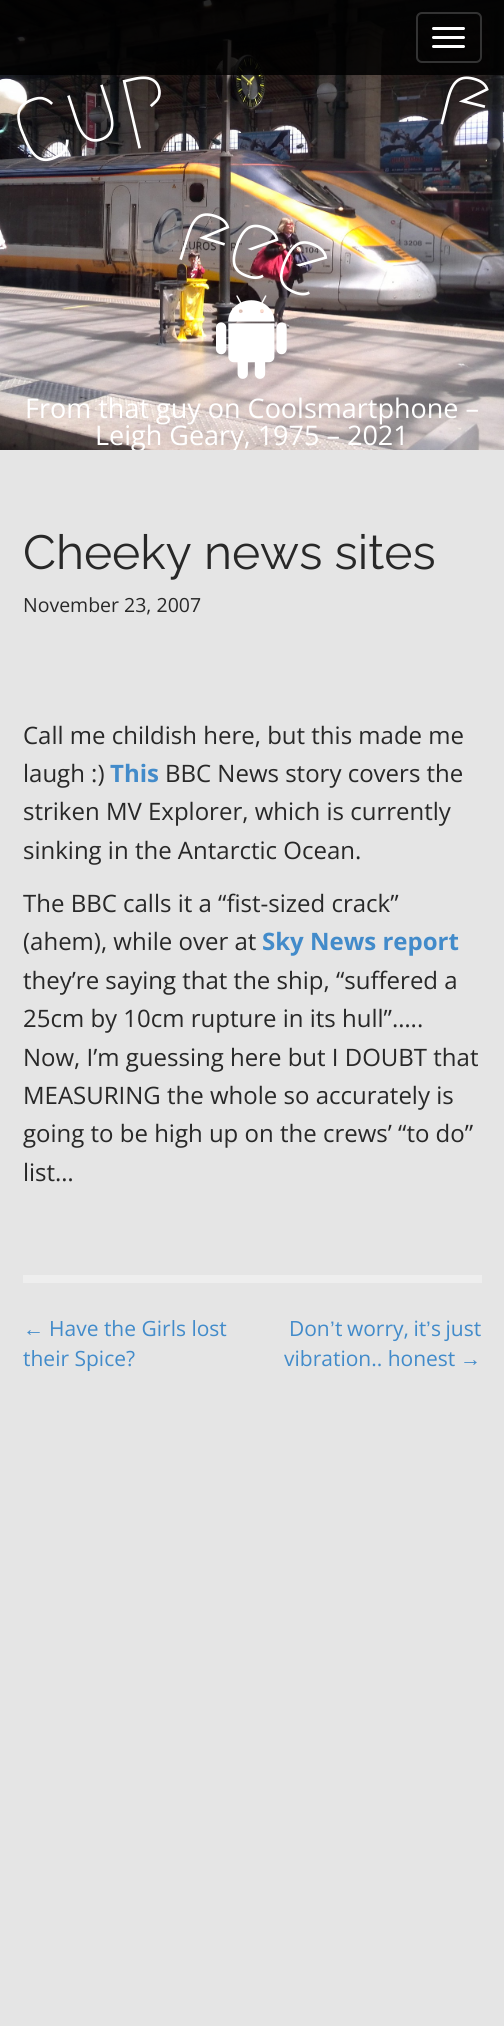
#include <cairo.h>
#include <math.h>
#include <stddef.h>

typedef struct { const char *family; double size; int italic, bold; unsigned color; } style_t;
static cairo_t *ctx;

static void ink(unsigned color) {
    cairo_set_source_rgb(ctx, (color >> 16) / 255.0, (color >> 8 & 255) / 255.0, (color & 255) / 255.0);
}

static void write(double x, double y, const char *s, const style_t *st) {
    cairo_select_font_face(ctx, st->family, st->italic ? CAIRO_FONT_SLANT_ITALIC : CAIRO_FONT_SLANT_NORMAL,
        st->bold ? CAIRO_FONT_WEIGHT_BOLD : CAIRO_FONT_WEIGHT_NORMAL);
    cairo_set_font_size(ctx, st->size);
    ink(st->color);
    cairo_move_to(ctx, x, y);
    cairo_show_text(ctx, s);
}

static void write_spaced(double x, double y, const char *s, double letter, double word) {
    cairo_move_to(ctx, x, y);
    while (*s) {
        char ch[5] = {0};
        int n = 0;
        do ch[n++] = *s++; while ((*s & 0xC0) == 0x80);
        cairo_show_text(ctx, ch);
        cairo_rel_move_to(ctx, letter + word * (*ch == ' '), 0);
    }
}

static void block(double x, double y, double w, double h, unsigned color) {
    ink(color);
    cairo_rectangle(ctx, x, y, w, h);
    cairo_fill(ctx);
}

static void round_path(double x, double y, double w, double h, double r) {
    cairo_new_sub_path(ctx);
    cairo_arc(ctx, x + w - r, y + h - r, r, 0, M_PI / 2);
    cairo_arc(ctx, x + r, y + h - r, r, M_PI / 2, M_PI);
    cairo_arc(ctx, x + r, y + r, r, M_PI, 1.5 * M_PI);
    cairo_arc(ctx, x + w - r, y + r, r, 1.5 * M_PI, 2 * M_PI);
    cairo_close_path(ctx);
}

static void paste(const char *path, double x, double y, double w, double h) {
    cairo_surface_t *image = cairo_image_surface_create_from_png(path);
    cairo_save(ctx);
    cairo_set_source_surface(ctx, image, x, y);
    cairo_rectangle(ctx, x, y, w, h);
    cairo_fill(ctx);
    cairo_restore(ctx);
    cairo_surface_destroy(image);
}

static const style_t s1 = {"Megrim Medium", 90, 0, 0, 0xffffff};
static const style_t s2 = {"Open Sans", 27, 0, 0, 0xffffff};
static const style_t s3 = {"Raleway Thin", 48, 0, 0, 0x282828};
static const style_t s4 = {"Open Sans", 19.5, 0, 0, 0x282828};
static const style_t s5 = {"Open Sans", 24, 0, 0, 0x282828};
static const style_t s6 = {"Open Sans", 24, 0, 1, 0x428bca};
static const style_t s7 = {"Liberation Sans", 21, 0, 0, 0x428bca};
static const style_t s8 = {"Open Sans", 21, 0, 0, 0x428bca};

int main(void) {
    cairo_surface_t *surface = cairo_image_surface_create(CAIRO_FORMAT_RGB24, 504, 2026);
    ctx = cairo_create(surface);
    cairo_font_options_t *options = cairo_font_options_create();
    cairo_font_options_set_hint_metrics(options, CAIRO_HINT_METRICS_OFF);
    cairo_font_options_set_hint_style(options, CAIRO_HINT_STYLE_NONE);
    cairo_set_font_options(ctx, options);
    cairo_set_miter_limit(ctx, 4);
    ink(0xe5e5e5);
    cairo_paint(ctx);
    paste("pic1.png", 0, 0, 504, 450);
    cairo_set_source_rgba(ctx, 0, 0, 0, 0.85);
    cairo_rectangle(ctx, 0, 0, 504, 75);
    cairo_fill(ctx);
    round_path(417, 13, 64, 49, 5);
    ink(0x333333);
    cairo_stroke(ctx);
    ink(0xffffff);
    round_path(432, 27, 33, 3, 1.5);
    cairo_fill(ctx);
    round_path(432, 36, 33, 3, 1.5);
    cairo_fill(ctx);
    round_path(432, 45, 33, 3, 1.5);
    cairo_fill(ctx);
    cairo_save(ctx);
    cairo_translate(ctx, 29, 169);
    cairo_rotate(ctx, -23 * M_PI / 180);
    write(0, 0, "C", &s1);
    cairo_restore(ctx);
    cairo_save(ctx);
    cairo_translate(ctx, 76, 148);
    cairo_rotate(ctx, -18 * M_PI / 180);
    write(0, 0, "u", &s1);
    cairo_restore(ctx);
    cairo_save(ctx);
    cairo_translate(ctx, 126, 133);
    cairo_rotate(ctx, -13 * M_PI / 180);
    write(0, 0, "p", &s1);
    cairo_restore(ctx);
    cairo_save(ctx);
    cairo_translate(ctx, 433, 122);
    cairo_rotate(ctx, 14 * M_PI / 180);
    write(0, 0, "f", &s1);
    cairo_restore(ctx);
    cairo_save(ctx);
    cairo_translate(ctx, 172, 257);
    cairo_rotate(ctx, 17 * M_PI / 180);
    write(0, 0, "f", &s1);
    cairo_restore(ctx);
    cairo_save(ctx);
    cairo_translate(ctx, 221, 267);
    cairo_rotate(ctx, 20 * M_PI / 180);
    write(0, 0, "e", &s1);
    cairo_restore(ctx);
    cairo_save(ctx);
    cairo_translate(ctx, 268, 281);
    cairo_rotate(ctx, 24 * M_PI / 180);
    write(0, 0, "e", &s1);
    cairo_restore(ctx);
    paste("pic2.png", 216, 295, 71, 84);
    write(25, 418, "From that guy on Coolsmartphone –", &s2);
    cairo_save(ctx);
    cairo_rectangle(ctx, 0, 0, 504, 450);
    cairo_clip(ctx);
    write(95, 445, "Leigh Geary, 1975 – 2021", &s2);
    cairo_restore(ctx);
    block(23, 1275, 459, 8, 0xeeeeee);
    write(23, 569, "Cheeky news sites", &s3);
    write(23, 612, "November 23, 2007", &s4);
    write(23, 744, "Call me childish here, but this made me", &s5);
    write(23, 782, "laugh :)", &s5);
    write(110, 782, "This", &s6);
    write(165, 782, "BBC News story covers the", &s5);
    write(23, 820, "striken MV Explorer, which is currently", &s5);
    write(23, 859, "sinking in the Antarctic Ocean.", &s5);
    write(23, 912, "The BBC calls it a “fist-sized crack”", &s5);
    write(23, 950, "(ahem), while over at", &s5);
    write(262, 950, "Sky News report", &s6);
    write(23, 989, "they’re saying that the ship, “suffered a", &s5);
    write(23, 1027, "25cm by 10cm rupture in its hull”…..", &s5);
    write(23, 1066, "Now, I’m guessing here but I DOUBT that", &s5);
    write(23, 1104, "MEASURING the whole so accurately is", &s5);
    write(23, 1142, "going to be high up on the crews’ “to do”", &s5);
    write(23, 1181, "list…", &s5);
    write(23, 1336, "←", &s7);
    write(49, 1336, "Have the Girls lost", &s8);
    write(23, 1366, "their Spice?", &s8);
    write(289, 1336, "Don", &s8);
    write(330, 1336, "’", &s7);
    cairo_select_font_face(ctx, "Open Sans", CAIRO_FONT_SLANT_NORMAL, CAIRO_FONT_WEIGHT_NORMAL);
    write_spaced(335, 1336, "t worry, it", 0, -1);
    write(426, 1336, "’", &s7);
    cairo_select_font_face(ctx, "Open Sans", CAIRO_FONT_SLANT_NORMAL, CAIRO_FONT_WEIGHT_NORMAL);
    write_spaced(431, 1336, "s just", 0, -1);
    write(284, 1366, "vibration.. honest", &s8);
    write(460, 1366, "→", &s7);
    cairo_surface_write_to_png(surface, "screenshot.png");
    cairo_font_options_destroy(options);
    cairo_destroy(ctx);
    cairo_surface_destroy(surface);
    return 0;
}
